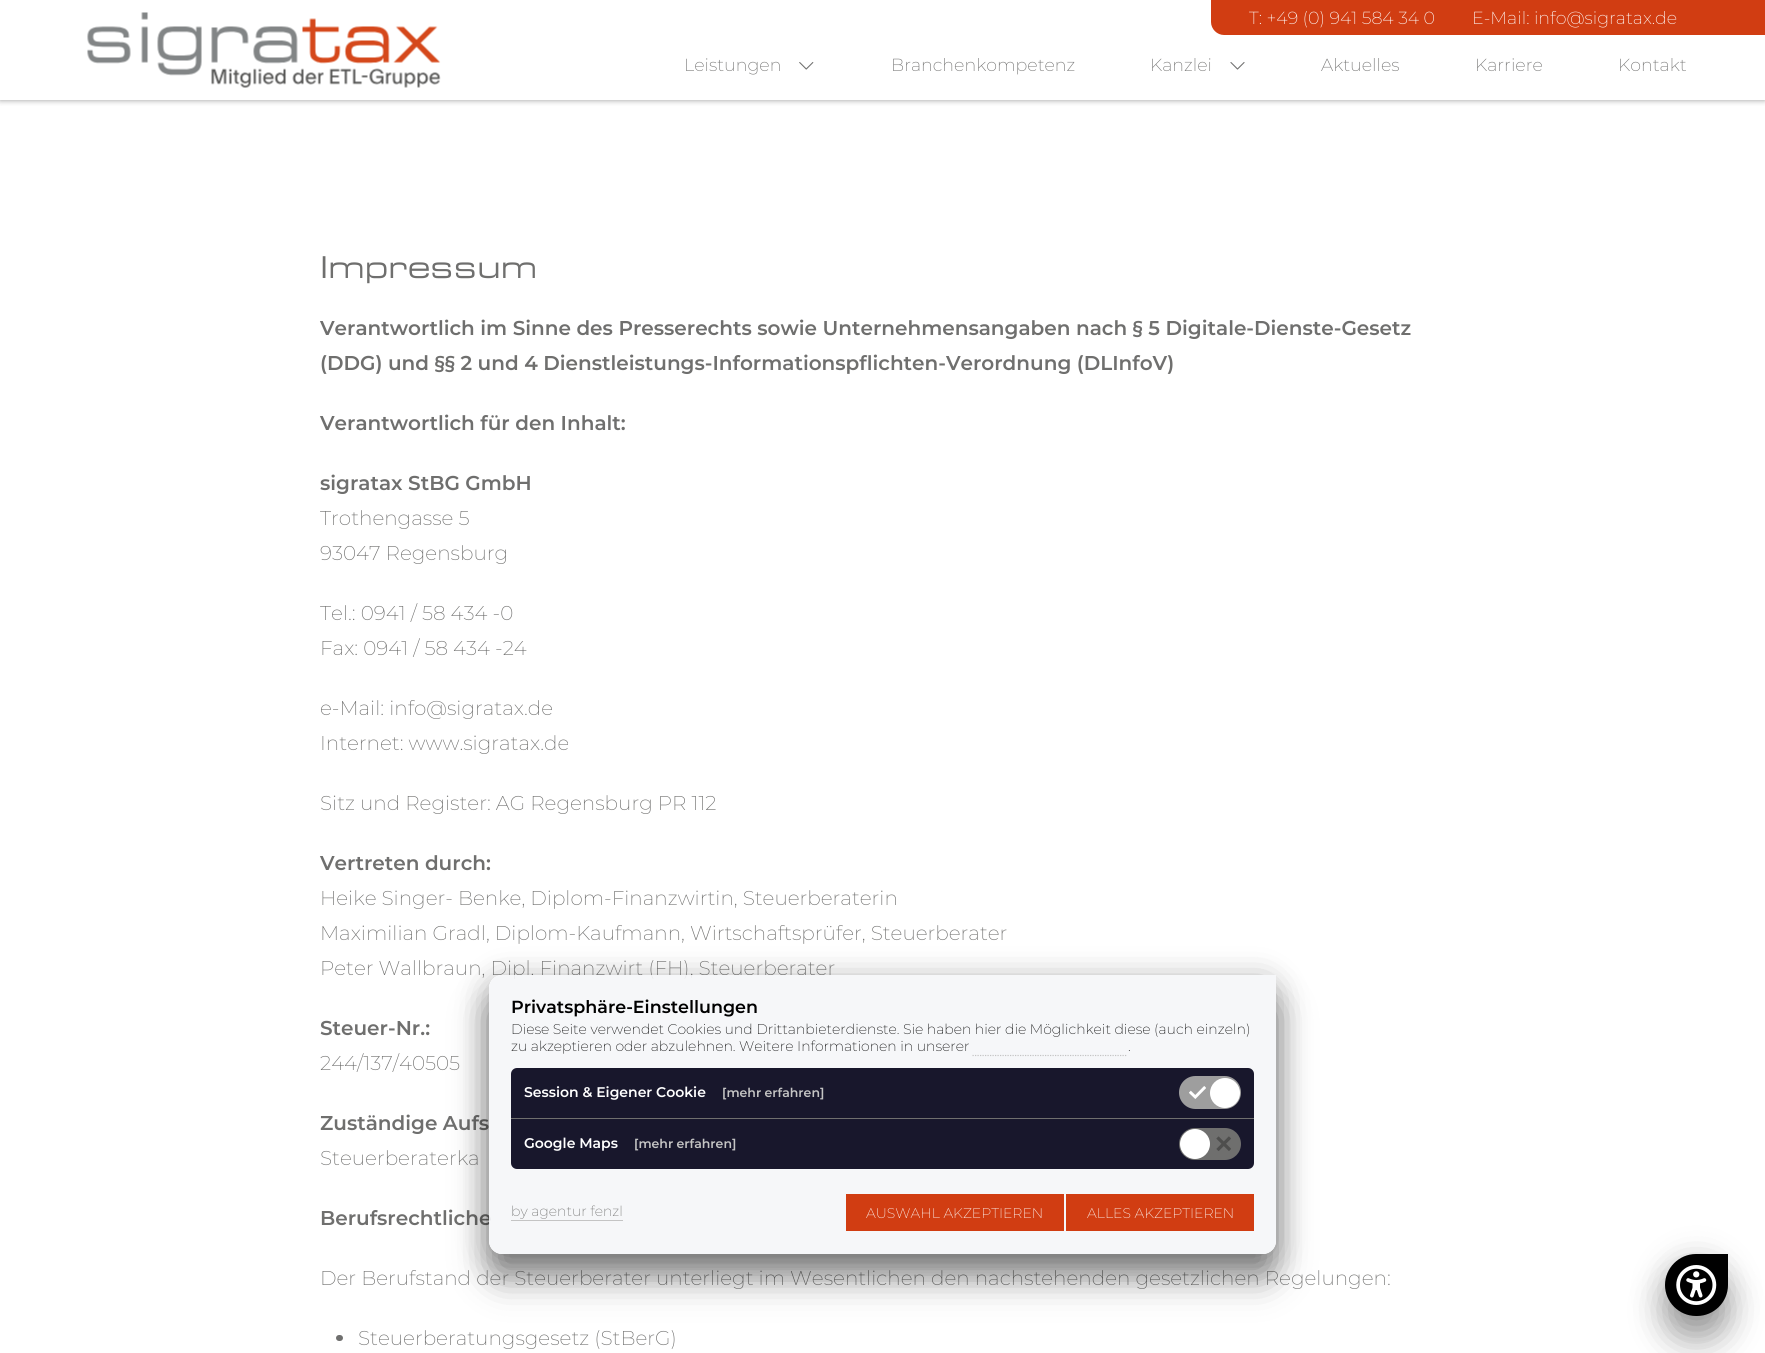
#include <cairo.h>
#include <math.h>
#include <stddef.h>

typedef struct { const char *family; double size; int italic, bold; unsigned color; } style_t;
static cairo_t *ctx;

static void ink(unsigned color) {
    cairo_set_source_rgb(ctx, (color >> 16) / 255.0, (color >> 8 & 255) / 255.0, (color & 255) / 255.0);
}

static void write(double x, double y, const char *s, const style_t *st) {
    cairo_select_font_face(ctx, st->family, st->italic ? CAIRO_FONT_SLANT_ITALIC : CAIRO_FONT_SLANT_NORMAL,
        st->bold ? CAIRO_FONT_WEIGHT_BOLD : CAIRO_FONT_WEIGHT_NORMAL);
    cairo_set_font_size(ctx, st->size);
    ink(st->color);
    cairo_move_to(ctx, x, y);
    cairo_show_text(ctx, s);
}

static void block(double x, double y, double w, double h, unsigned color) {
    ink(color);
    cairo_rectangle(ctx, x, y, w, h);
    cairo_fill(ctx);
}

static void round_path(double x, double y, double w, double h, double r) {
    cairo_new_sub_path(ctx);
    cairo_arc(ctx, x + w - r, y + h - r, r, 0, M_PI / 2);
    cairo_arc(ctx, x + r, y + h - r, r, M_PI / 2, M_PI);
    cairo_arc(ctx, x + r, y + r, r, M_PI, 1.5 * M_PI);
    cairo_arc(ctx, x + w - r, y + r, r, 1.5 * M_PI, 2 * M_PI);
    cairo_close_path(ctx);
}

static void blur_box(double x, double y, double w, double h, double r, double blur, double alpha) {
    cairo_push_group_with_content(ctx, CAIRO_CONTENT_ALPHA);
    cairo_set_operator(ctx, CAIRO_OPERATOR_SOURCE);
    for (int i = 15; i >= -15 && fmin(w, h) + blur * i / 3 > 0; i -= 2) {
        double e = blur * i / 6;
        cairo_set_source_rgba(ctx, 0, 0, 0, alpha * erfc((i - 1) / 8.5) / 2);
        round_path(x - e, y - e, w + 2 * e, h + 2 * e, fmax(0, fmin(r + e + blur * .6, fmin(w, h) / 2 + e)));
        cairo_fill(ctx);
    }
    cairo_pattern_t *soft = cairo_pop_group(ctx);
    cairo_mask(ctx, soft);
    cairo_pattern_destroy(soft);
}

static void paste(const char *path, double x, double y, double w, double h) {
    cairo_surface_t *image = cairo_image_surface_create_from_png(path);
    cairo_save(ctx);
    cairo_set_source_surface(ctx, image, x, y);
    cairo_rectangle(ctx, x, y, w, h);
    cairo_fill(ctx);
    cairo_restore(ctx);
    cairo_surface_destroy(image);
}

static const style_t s1 = {"Montserrat ExtraLight", 17.5, 0, 0, 0xffffff};
static const style_t s2 = {"Montserrat ExtraLight", 17.5, 0, 0, 0x6f6f6e};
static const style_t s3 = {"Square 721", 30, 0, 0, 0x6f6f6e};
static const style_t s4 = {"Montserrat SemiBold", 20, 0, 0, 0x6f6f6e};
static const style_t s5 = {"Montserrat ExtraLight", 20, 0, 0, 0x6f6f6e};
static const style_t s6 = {"Montserrat SemiBold", 17.5, 0, 0, 0x000000};
static const style_t s7 = {"Montserrat ExtraLight", 14, 0, 0, 0x000000};
static const style_t s8 = {"Montserrat SemiBold", 14, 0, 0, 0xffffff};
static const style_t s9 = {"Montserrat SemiBold", 12.5, 0, 0, 0xc4c4c4};
static const style_t s10 = {"Montserrat ExtraLight", 14, 0, 0, 0x6f6f6e};
static const style_t s11 = {"Montserrat ExtraLight", 14, 0, 0, 0xffffff};

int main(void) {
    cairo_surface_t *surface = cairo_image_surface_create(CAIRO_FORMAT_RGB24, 1765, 1353);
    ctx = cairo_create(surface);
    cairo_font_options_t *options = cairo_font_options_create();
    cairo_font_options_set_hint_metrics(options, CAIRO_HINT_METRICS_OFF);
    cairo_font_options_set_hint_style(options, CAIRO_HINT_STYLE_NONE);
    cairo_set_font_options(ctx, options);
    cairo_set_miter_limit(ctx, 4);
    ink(0xffffff);
    cairo_paint(ctx);
    cairo_save(ctx);
    cairo_rectangle(ctx, 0, 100, 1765, 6);
    cairo_clip(ctx);
    ink(0x999999);
    blur_box(0, 0, 1765, 100, 0, 3, 1);
    cairo_restore(ctx);
    paste("pic1.png", 87, 12, 354, 76);
    ink(0xd13d12);
    cairo_new_path(ctx);
    cairo_move_to(ctx, 1211, 0);
    cairo_line_to(ctx, 1765, 0);
    cairo_line_to(ctx, 1765, 35);
    cairo_line_to(ctx, 1224, 35);
    cairo_curve_to(ctx, 1217, 35, 1211, 29, 1211, 22);
    cairo_close_path(ctx);
    cairo_fill(ctx);
    write(1249, 24, "T: +49 (0) 941 584 34 0", &s1);
    write(1472, 24, "E-Mail: info@sigratax.de", &s1);
    write(684, 71, "Leistungen", &s2);
    paste("pic2.png", 799, 62, 15, 8);
    write(891, 71, "Branchenkompetenz", &s2);
    write(1150, 71, "Kanzlei", &s2);
    paste("pic3.png", 1230, 62, 15, 8);
    write(1321, 71, "Aktuelles", &s2);
    write(1475, 71, "Karriere", &s2);
    write(1618, 71, "Kontakt", &s2);
    write(320, 278, "Impressum", &s3);
    write(320, 335, "Verantwortlich im Sinne des Presserechts sowie Unternehmensangaben nach § 5 Digitale-Dienste-Gesetz", &s4);
    write(320, 370, "(DDG) und §§ 2 und 4 Dienstleistungs-Informationspflichten-Verordnung (DLInfoV)", &s4);
    write(320, 430, "Verantwortlich für den Inhalt:", &s4);
    write(320, 490, "sigratax StBG GmbH", &s4);
    write(320, 525, "Trothengasse 5", &s5);
    write(320, 560, "93047 Regensburg", &s5);
    write(320, 620, "Tel.: 0941 / 58 434 -0", &s5);
    write(320, 655, "Fax: 0941 / 58 434 -24", &s5);
    write(320, 715, "e-Mail: info@sigratax.de", &s5);
    write(320, 750, "Internet: www.sigratax.de", &s5);
    write(320, 810, "Sitz und Register: AG Regensburg PR 112", &s5);
    write(320, 870, "Vertreten durch:", &s4);
    write(320, 905, "Heike Singer- Benke, Diplom-Finanzwirtin, Steuerberaterin", &s5);
    write(320, 940, "Maximilian Gradl, Diplom-Kaufmann, Wirtschaftsprüfer, Steuerberater", &s5);
    write(320, 975, "Peter Wallbraun, Dipl. Finanzwirt (FH), Steuerberater", &s5);
    write(320, 1035, "Steuer-Nr.:", &s4);
    write(320, 1070, "244/137/40505", &s5);
    write(320, 1130, "Zuständige Aufs", &s4);
    write(320, 1165, "Steuerberaterka", &s5);
    write(320, 1225, "Berufsrechtliche", &s4);
    write(320, 1285, "Der Berufstand der Steuerberater unterliegt im Wesentlichen den nachstehenden gesetzlichen Regelungen:", &s5);
    round_path(336, 1335, 7, 6, 3);
    cairo_fill(ctx);
    write(358, 1345, "Steuerberatungsgesetz (StBerG)", &s5);
    cairo_save(ctx);
    cairo_set_fill_rule(ctx, CAIRO_FILL_RULE_EVEN_ODD);
    cairo_new_path(ctx);
    cairo_move_to(ctx, 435, 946);
    cairo_line_to(ctx, 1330, 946);
    cairo_line_to(ctx, 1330, 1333);
    cairo_line_to(ctx, 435, 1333);
    cairo_close_path(ctx);
    cairo_move_to(ctx, 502, 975);
    cairo_line_to(ctx, 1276, 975);
    cairo_line_to(ctx, 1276, 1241);
    cairo_curve_to(ctx, 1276, 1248, 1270, 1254, 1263, 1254);
    cairo_line_to(ctx, 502, 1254);
    cairo_curve_to(ctx, 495, 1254, 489, 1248, 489, 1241);
    cairo_line_to(ctx, 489, 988);
    cairo_curve_to(ctx, 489, 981, 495, 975, 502, 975);
    cairo_close_path(ctx);
    cairo_clip(ctx);
    ink(0x000000);
    blur_box(489, 1000, 787, 279, 13, 17.5, 0.4);
    cairo_restore(ctx);
    cairo_save(ctx);
    cairo_set_fill_rule(ctx, CAIRO_FILL_RULE_EVEN_ODD);
    cairo_new_path(ctx);
    cairo_move_to(ctx, 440, 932);
    cairo_line_to(ctx, 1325, 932);
    cairo_line_to(ctx, 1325, 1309);
    cairo_line_to(ctx, 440, 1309);
    cairo_close_path(ctx);
    cairo_move_to(ctx, 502, 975);
    cairo_line_to(ctx, 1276, 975);
    cairo_line_to(ctx, 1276, 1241);
    cairo_curve_to(ctx, 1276, 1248, 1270, 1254, 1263, 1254);
    cairo_line_to(ctx, 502, 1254);
    cairo_curve_to(ctx, 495, 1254, 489, 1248, 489, 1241);
    cairo_line_to(ctx, 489, 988);
    cairo_curve_to(ctx, 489, 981, 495, 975, 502, 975);
    cairo_close_path(ctx);
    cairo_clip(ctx);
    ink(0x000000);
    blur_box(489, 981, 787, 279, 13, 16, 0.3);
    cairo_restore(ctx);
    cairo_set_source_rgba(ctx, 0.961, 0.965, 0.976, 0.9);
    cairo_new_path(ctx);
    cairo_move_to(ctx, 502, 975);
    cairo_line_to(ctx, 1276, 975);
    cairo_line_to(ctx, 1276, 1241);
    cairo_curve_to(ctx, 1276, 1248, 1270, 1254, 1263, 1254);
    cairo_line_to(ctx, 502, 1254);
    cairo_curve_to(ctx, 495, 1254, 489, 1248, 489, 1241);
    cairo_line_to(ctx, 489, 988);
    cairo_curve_to(ctx, 489, 981, 495, 975, 502, 975);
    cairo_close_path(ctx);
    cairo_fill(ctx);
    write(511, 1013, "Privatsphäre-Einstellungen", &s6);
    write(511, 1034, "Diese Seite verwendet Cookies und Drittanbieterdienste. Sie haben hier die Möglichkeit diese (auch einzeln)", &s7);
    write(511, 1051, "zu akzeptieren oder abzulehnen. Weitere Informationen in unserer", &s7);
    write(1128, 1051, ".", &s7);
    cairo_new_path(ctx);
    cairo_move_to(ctx, 972.5, 1055.5);
    cairo_line_to(ctx, 1127.5, 1055.5);
    ink(0xc4c4c4);
    cairo_set_line_width(ctx, 1.2);
    cairo_set_dash(ctx, (double[]){1.25, 1.25}, 2, 0);
    cairo_stroke(ctx);
    ink(0x18172c);
    round_path(511, 1068, 743, 101, 6);
    cairo_fill(ctx);
    block(511, 1118, 743, 1, 0x6f6f6e);
    write(524, 1097, "Session & Eigener Cookie", &s8);
    write(722, 1097, "[mehr erfahren]", &s9);
    ink(0x9e9e9e);
    round_path(1179, 1076, 62, 33, 16.5);
    cairo_fill(ctx);
    paste("pic4.png", 1189, 1086, 17, 13);
    ink(0xffffff);
    cairo_arc(ctx, 1225, 1093, 15, 0, 2 * M_PI);
    cairo_fill(ctx);
    write(524, 1148, "Google Maps", &s8);
    write(634, 1148, "[mehr erfahren]", &s9);
    ink(0x6f6f6e);
    round_path(1179, 1128, 62, 32, 16);
    cairo_fill(ctx);
    ink(0xffffff);
    cairo_arc(ctx, 1195, 1144, 15, 0, 2 * M_PI);
    cairo_fill(ctx);
    paste("pic5.png", 1216, 1136, 15, 15);
    write(511, 1216, "by agentur fenzl", &s10);
    block(511, 1220, 112, 1, 0xc4c4c4);
    block(846, 1194, 218, 37, 0xd13d12);
    write(866, 1218, "AUSWAHL AKZEPTIEREN", &s11);
    block(1066, 1194, 188, 37, 0xd13d12);
    write(1087, 1218, "ALLES AKZEPTIEREN", &s11);
    ink(0x000000);
    blur_box(1665, 1279, 63, 62, 31, 17.5, 0.3);
    blur_box(1665, 1260, 63, 63, 31.5, 16, 0.2);
    ink(0x000000);
    cairo_new_path(ctx);
    cairo_move_to(ctx, 1696, 1254);
    cairo_line_to(ctx, 1728, 1254);
    cairo_line_to(ctx, 1728, 1285);
    cairo_curve_to(ctx, 1728, 1302, 1714, 1316, 1697, 1316);
    cairo_line_to(ctx, 1696, 1316);
    cairo_curve_to(ctx, 1679, 1316, 1665, 1302, 1665, 1285);
    cairo_curve_to(ctx, 1665, 1268, 1679, 1254, 1696, 1254);
    cairo_close_path(ctx);
    cairo_fill(ctx);
    paste("pic6.png", 1676, 1265, 41, 40);
    cairo_surface_write_to_png(surface, "screenshot.png");
    cairo_font_options_destroy(options);
    cairo_destroy(ctx);
    cairo_surface_destroy(surface);
    return 0;
}
